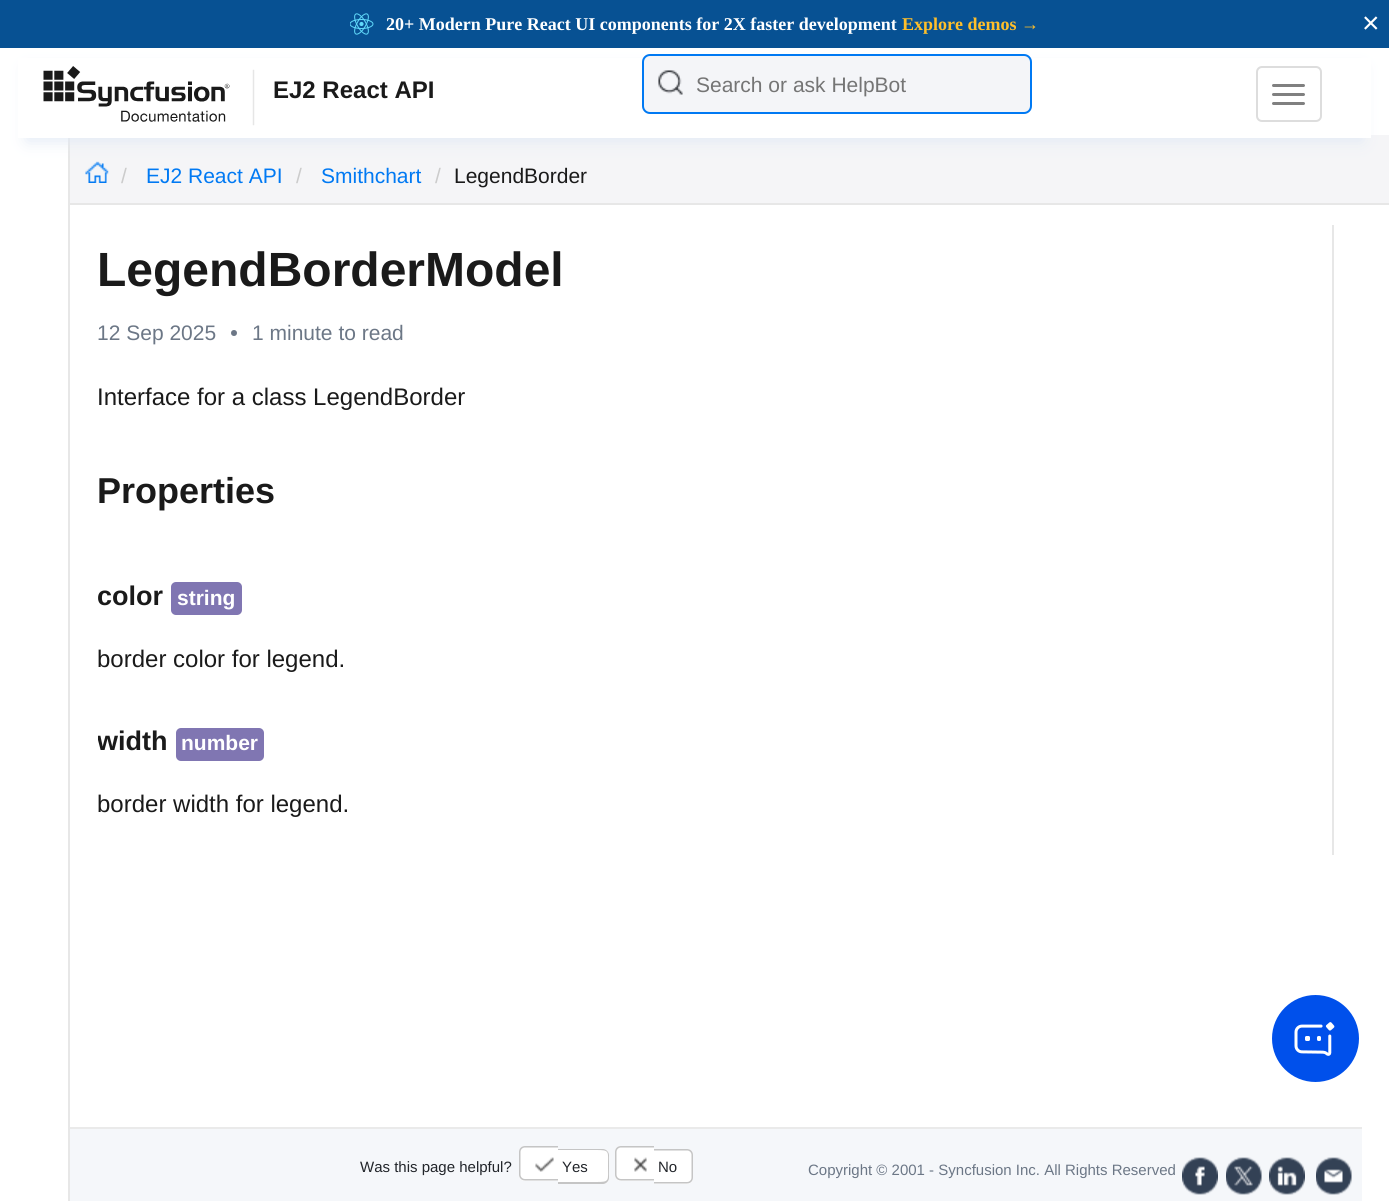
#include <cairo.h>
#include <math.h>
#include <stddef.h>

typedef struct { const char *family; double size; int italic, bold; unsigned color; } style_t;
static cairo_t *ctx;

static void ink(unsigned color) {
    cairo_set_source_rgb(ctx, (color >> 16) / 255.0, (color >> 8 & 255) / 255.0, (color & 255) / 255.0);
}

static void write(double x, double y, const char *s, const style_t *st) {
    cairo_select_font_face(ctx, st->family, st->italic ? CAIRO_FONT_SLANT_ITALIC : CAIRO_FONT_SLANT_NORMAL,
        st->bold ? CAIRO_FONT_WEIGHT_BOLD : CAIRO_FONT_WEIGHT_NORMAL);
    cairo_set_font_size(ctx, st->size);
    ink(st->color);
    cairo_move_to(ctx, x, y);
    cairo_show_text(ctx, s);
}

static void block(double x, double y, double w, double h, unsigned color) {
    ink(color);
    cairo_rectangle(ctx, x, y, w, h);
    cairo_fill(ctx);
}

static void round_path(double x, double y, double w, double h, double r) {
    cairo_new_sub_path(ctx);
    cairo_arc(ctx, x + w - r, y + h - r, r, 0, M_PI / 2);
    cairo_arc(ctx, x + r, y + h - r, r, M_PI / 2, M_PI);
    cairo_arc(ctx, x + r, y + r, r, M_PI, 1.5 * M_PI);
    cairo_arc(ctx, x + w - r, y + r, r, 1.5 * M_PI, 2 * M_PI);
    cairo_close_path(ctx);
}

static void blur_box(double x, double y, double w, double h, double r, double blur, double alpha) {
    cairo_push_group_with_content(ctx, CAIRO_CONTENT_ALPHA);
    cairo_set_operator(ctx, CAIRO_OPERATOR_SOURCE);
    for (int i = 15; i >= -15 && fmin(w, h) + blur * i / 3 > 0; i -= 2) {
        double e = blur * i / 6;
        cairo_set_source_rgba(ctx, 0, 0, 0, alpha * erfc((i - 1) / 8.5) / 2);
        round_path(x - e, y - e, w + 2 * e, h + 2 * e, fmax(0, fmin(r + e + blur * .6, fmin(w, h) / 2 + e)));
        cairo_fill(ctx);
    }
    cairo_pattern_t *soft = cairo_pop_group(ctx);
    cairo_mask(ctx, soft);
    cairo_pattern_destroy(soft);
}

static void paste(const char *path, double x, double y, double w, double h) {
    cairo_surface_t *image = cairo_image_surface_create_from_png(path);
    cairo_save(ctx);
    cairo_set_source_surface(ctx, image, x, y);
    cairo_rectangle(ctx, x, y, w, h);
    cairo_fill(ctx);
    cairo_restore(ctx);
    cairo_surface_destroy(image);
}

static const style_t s1 = {"Liberation Serif", 18, 0, 1, 0xffffff};
static const style_t s2 = {"Liberation Serif", 18, 0, 1, 0xffbf2a};
static const style_t s3 = {"Liberation Sans", 30, 0, 0, 0xffffff};
static const style_t s4 = {"Liberation Sans", 24, 0, 1, 0x1a1a1a};
static const style_t s5 = {"Liberation Sans", 21, 0, 0, 0x757575};
static const style_t s6 = {"Liberation Sans", 21, 0, 0, 0xcccccc};
static const style_t s7 = {"Liberation Sans", 21, 0, 0, 0x0079f3};
static const style_t s8 = {"Liberation Sans", 21, 0, 0, 0x1a1a1a};
static const style_t s9 = {"Liberation Sans", 48, 0, 1, 0x1a1a1a};
static const style_t s10 = {"Liberation Sans", 21, 0, 0, 0x6c7786};
static const style_t s11 = {"Liberation Sans", 24, 0, 0, 0x1a1a1a};
static const style_t s12 = {"Liberation Sans", 36, 0, 1, 0x1a1a1a};
static const style_t s13 = {"Liberation Sans", 27, 0, 1, 0x1a1a1a};
static const style_t s14 = {"Liberation Sans", 21, 0, 1, 0xffffff};
static const style_t s15 = {"Liberation Sans", 15, 0, 0, 0x22252a};
static const style_t s16 = {"Liberation Sans", 15, 0, 0, 0x6c7786};

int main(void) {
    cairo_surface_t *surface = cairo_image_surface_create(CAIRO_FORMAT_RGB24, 1389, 1201);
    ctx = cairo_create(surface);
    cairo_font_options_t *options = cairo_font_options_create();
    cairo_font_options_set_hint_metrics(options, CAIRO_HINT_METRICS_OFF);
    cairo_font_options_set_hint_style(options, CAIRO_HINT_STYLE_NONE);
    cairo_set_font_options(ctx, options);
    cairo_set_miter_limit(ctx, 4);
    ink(0xffffff);
    cairo_paint(ctx);
    block(70, 135, 1319, 68, 0xf5f5f7);
    paste("pic4.png", 85, 161, 24, 22);
    block(68, 138, 2, 1063, 0xe7e7e7);
    ink(0xe2eaf5);
    blur_box(27, 69, 1335, 72, 0, 8, 1);
    block(0, 0, 1389, 48, 0x075193);
    paste("pic1.png", 350, 13, 24, 22);
    write(386, 30, "20+ Modern Pure React UI components for 2X faster development", &s1);
    write(902, 30, "Explore demos →", &s2);
    write(1362, 33, "×", &s3);
    block(18, 58, 1353, 80, 0xffffff);
    paste("pic2.png", 43, 66, 212, 60);
    write(273, 98, "EJ2 React API", &s4);
    ink(0xf4f5f8);
    round_path(642, 54, 390, 60, 8);
    cairo_fill(ctx);
    paste("pic3.png", 658, 70, 25, 25);
    round_path(643, 55, 388, 58, 7);
    ink(0x0079f3);
    cairo_stroke(ctx);
    write(696, 92, "Search or ask HelpBot", &s5);
    round_path(1257, 67, 64, 54, 5);
    ink(0xdddddd);
    cairo_stroke(ctx);
    ink(0x808080);
    round_path(1272, 84, 33, 3, 1.5);
    cairo_fill(ctx);
    round_path(1272, 93, 33, 3, 1.5);
    cairo_fill(ctx);
    round_path(1272, 102, 33, 3, 1.5);
    cairo_fill(ctx);
    block(70, 203, 1319, 2, 0xe7e7e7);
    write(121, 183, "/", &s6);
    write(146, 183, "EJ2 React API", &s7);
    write(296, 183, "/", &s6);
    write(321, 183, "Smithchart", &s7);
    write(435, 183, "/", &s6);
    write(454, 183, "LegendBorder", &s8);
    block(1332, 225, 2, 630, 0xe7e7e7);
    write(97, 286, "LegendBorderModel", &s9);
    write(97, 340, "12 Sep 2025", &s10);
    cairo_new_path(ctx);
    cairo_arc(ctx, 234, 333, 3, 0, 2 * M_PI);
    cairo_fill(ctx);
    write(252, 340, "1 minute to read", &s10);
    write(97, 405, "Interface for a class LegendBorder", &s11);
    write(97, 503, "Properties", &s12);
    write(97, 605, "color", &s13);
    ink(0x8076b2);
    round_path(171, 582, 71, 33, 5);
    cairo_fill(ctx);
    write(177, 605, "string", &s14);
    write(97, 667, "border color for legend.", &s11);
    cairo_save(ctx);
    cairo_rectangle(ctx, 98, 225, 1234, 630);
    cairo_clip(ctx);
    write(97, 750, "width", &s13);
    cairo_restore(ctx);
    ink(0x8076b2);
    round_path(176, 728, 88, 33, 5);
    cairo_fill(ctx);
    write(181, 750, "number", &s14);
    write(97, 812, "border width for legend.", &s11);
    ink(0x0050eb);
    cairo_new_path(ctx);
    cairo_arc(ctx, 1315.5, 1038.5, 43.5, 0, 2 * M_PI);
    cairo_fill(ctx);
    paste("pic5.png", 1294, 1022, 41, 34);
    block(70, 1129, 1292, 72, 0xf5f7fa);
    block(70, 1127, 1292, 2, 0xeaeaea);
    write(360, 1172, "Was this page helpful?", &s15);
    ink(0xffffff);
    cairo_new_path(ctx);
    cairo_move_to(ctx, 525, 1146);
    cairo_line_to(ctx, 558, 1146);
    cairo_line_to(ctx, 558, 1181);
    cairo_line_to(ctx, 525, 1181);
    cairo_curve_to(ctx, 521.5, 1181, 519, 1178.5, 519, 1175);
    cairo_line_to(ctx, 519, 1152);
    cairo_curve_to(ctx, 519, 1148.5, 521.5, 1146, 525, 1146);
    cairo_close_path(ctx);
    cairo_fill(ctx);
    ink(0xc5c5c5);
    cairo_set_fill_rule(ctx, CAIRO_FILL_RULE_EVEN_ODD);
    cairo_new_path(ctx);
    cairo_move_to(ctx, 525, 1146);
    cairo_line_to(ctx, 558, 1146);
    cairo_line_to(ctx, 558, 1180.5);
    cairo_line_to(ctx, 525, 1180.5);
    cairo_curve_to(ctx, 521.5, 1180.5, 519, 1178, 519, 1174.5);
    cairo_line_to(ctx, 519, 1152);
    cairo_curve_to(ctx, 519, 1148.5, 521.5, 1146, 525, 1146);
    cairo_close_path(ctx);
    cairo_move_to(ctx, 525, 1147.5);
    cairo_line_to(ctx, 558, 1147.5);
    cairo_line_to(ctx, 558, 1179);
    cairo_line_to(ctx, 525, 1179);
    cairo_curve_to(ctx, 522.5, 1179, 520.5, 1177, 520.5, 1174.5);
    cairo_line_to(ctx, 520.5, 1152);
    cairo_curve_to(ctx, 520.5, 1149.5, 522.5, 1147.5, 525, 1147.5);
    cairo_close_path(ctx);
    cairo_fill(ctx);
    ink(0xffffff);
    cairo_new_path(ctx);
    cairo_move_to(ctx, 558, 1149);
    cairo_line_to(ctx, 603, 1149);
    cairo_curve_to(ctx, 606.5, 1149, 609, 1151.5, 609, 1155);
    cairo_line_to(ctx, 609, 1178);
    cairo_curve_to(ctx, 609, 1181.5, 606.5, 1184, 603, 1184);
    cairo_line_to(ctx, 558, 1184);
    cairo_close_path(ctx);
    cairo_fill(ctx);
    ink(0xc5c5c5);
    cairo_new_path(ctx);
    cairo_move_to(ctx, 558, 1149);
    cairo_line_to(ctx, 603, 1149);
    cairo_curve_to(ctx, 606, 1149, 609, 1152, 609, 1155);
    cairo_line_to(ctx, 609, 1178);
    cairo_curve_to(ctx, 609, 1181, 606, 1184, 603, 1184);
    cairo_line_to(ctx, 558, 1184);
    cairo_close_path(ctx);
    cairo_move_to(ctx, 558, 1150);
    cairo_line_to(ctx, 596, 1150);
    cairo_curve_to(ctx, 610, 1150, 608, 1151, 608, 1166);
    cairo_curve_to(ctx, 608, 1181, 610, 1182, 596, 1182);
    cairo_line_to(ctx, 558, 1182);
    cairo_close_path(ctx);
    cairo_fill(ctx);
    paste("pic6.png", 535, 1157, 19, 15);
    write(562, 1172, "Yes", &s15);
    ink(0xffffff);
    cairo_new_path(ctx);
    cairo_move_to(ctx, 621, 1146);
    cairo_line_to(ctx, 654, 1146);
    cairo_line_to(ctx, 654, 1181);
    cairo_line_to(ctx, 621, 1181);
    cairo_curve_to(ctx, 617.5, 1181, 615, 1178.5, 615, 1175);
    cairo_line_to(ctx, 615, 1152);
    cairo_curve_to(ctx, 615, 1148.5, 617.5, 1146, 621, 1146);
    cairo_close_path(ctx);
    cairo_fill(ctx);
    ink(0xc5c5c5);
    cairo_new_path(ctx);
    cairo_move_to(ctx, 621, 1146);
    cairo_line_to(ctx, 654, 1146);
    cairo_line_to(ctx, 654, 1180.5);
    cairo_line_to(ctx, 621, 1180.5);
    cairo_curve_to(ctx, 617.5, 1180.5, 615, 1178, 615, 1174.5);
    cairo_line_to(ctx, 615, 1152);
    cairo_curve_to(ctx, 615, 1148.5, 617.5, 1146, 621, 1146);
    cairo_close_path(ctx);
    cairo_move_to(ctx, 621, 1147.5);
    cairo_line_to(ctx, 654, 1147.5);
    cairo_line_to(ctx, 654, 1179);
    cairo_line_to(ctx, 621, 1179);
    cairo_curve_to(ctx, 618.5, 1179, 616.5, 1177, 616.5, 1174.5);
    cairo_line_to(ctx, 616.5, 1152);
    cairo_curve_to(ctx, 616.5, 1149.5, 618.5, 1147.5, 621, 1147.5);
    cairo_close_path(ctx);
    cairo_fill(ctx);
    ink(0xffffff);
    cairo_new_path(ctx);
    cairo_move_to(ctx, 654, 1149);
    cairo_line_to(ctx, 687, 1149);
    cairo_curve_to(ctx, 690.5, 1149, 693, 1151.5, 693, 1155);
    cairo_line_to(ctx, 693, 1178);
    cairo_curve_to(ctx, 693, 1181.5, 690.5, 1184, 687, 1184);
    cairo_line_to(ctx, 654, 1184);
    cairo_close_path(ctx);
    cairo_fill(ctx);
    ink(0xc5c5c5);
    cairo_new_path(ctx);
    cairo_move_to(ctx, 654, 1149);
    cairo_line_to(ctx, 687, 1149);
    cairo_curve_to(ctx, 690.5, 1149, 693, 1151.5, 693, 1155);
    cairo_line_to(ctx, 693, 1177.5);
    cairo_curve_to(ctx, 693, 1181, 690.5, 1183.5, 687, 1183.5);
    cairo_line_to(ctx, 654, 1183.5);
    cairo_close_path(ctx);
    cairo_move_to(ctx, 654, 1150.5);
    cairo_line_to(ctx, 687, 1150.5);
    cairo_curve_to(ctx, 689.5, 1150.5, 691.5, 1152.5, 691.5, 1155);
    cairo_line_to(ctx, 691.5, 1177.5);
    cairo_curve_to(ctx, 691.5, 1180, 689.5, 1182, 687, 1182);
    cairo_line_to(ctx, 654, 1182);
    cairo_close_path(ctx);
    cairo_fill(ctx);
    paste("pic7.png", 634, 1157, 13, 15);
    write(658, 1172, "No", &s15);
    write(808, 1175, "Copyright © 2001 - Syncfusion Inc. All Rights Reserved", &s16);
    paste("pic8.png", 1182, 1157, 36, 38);
    paste("pic9.png", 1226, 1157, 36, 38);
    paste("pic10.png", 1269, 1157, 36, 38);
    paste("pic11.png", 1316, 1157, 36, 38);
    cairo_surface_write_to_png(surface, "screenshot.png");
    cairo_font_options_destroy(options);
    cairo_destroy(ctx);
    cairo_surface_destroy(surface);
    return 0;
}
